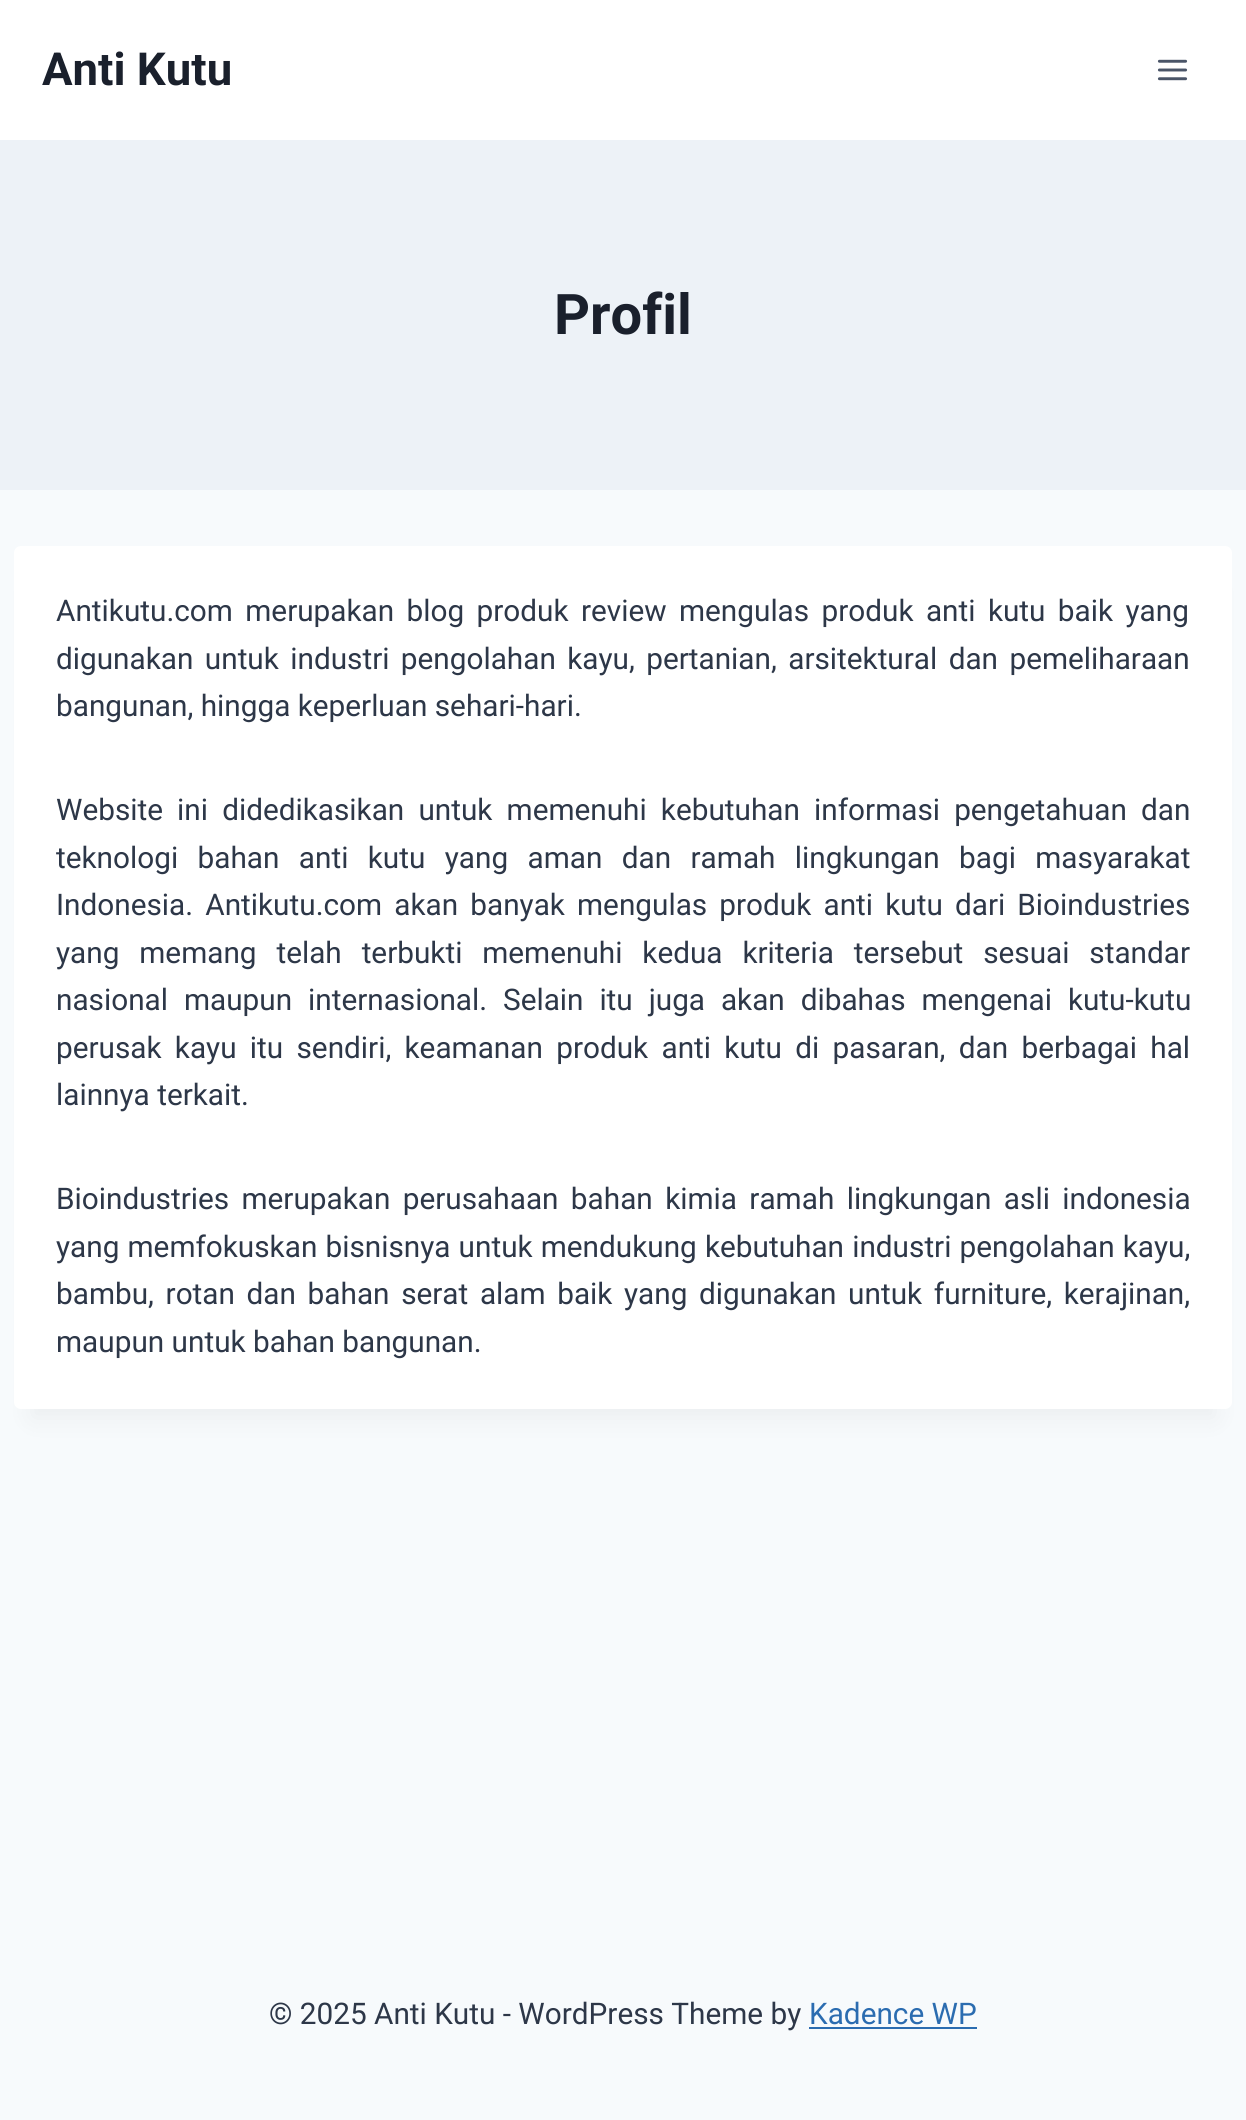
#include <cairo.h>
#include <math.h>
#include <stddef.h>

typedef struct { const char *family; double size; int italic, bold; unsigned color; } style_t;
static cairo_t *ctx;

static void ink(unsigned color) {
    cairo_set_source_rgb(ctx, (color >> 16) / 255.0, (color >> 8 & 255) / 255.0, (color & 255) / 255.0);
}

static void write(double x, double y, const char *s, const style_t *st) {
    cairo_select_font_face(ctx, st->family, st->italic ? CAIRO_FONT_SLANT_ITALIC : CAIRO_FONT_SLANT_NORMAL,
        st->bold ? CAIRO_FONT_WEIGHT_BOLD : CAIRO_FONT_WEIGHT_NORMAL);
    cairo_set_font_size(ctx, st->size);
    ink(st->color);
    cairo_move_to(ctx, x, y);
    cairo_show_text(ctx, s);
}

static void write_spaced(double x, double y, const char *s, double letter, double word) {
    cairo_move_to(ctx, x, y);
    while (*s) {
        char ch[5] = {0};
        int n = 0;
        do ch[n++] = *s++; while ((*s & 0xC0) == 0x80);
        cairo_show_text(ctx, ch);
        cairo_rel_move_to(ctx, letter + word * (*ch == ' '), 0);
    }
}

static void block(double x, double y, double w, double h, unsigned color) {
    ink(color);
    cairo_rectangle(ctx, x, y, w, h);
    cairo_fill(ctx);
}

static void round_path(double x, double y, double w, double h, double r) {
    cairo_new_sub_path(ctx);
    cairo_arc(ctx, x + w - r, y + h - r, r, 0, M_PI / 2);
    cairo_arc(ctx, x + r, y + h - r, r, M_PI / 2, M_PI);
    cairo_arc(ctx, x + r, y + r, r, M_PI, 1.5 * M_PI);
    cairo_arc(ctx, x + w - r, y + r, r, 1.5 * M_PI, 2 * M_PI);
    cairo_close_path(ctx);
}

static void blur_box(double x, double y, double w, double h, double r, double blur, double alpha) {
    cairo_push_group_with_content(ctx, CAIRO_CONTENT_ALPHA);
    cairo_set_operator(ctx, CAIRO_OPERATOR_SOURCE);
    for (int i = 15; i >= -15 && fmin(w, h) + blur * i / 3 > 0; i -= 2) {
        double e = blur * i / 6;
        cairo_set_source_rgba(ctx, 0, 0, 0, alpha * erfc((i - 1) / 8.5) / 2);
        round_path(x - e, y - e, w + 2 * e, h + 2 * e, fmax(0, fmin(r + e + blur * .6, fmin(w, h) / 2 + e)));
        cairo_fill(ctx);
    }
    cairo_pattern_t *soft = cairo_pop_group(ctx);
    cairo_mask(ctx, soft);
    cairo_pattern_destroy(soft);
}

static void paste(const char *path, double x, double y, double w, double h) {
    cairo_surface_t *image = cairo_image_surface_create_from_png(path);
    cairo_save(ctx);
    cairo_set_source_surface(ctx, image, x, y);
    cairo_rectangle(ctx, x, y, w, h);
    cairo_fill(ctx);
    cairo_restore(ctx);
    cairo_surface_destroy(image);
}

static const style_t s1 = {"Roboto", 45.5, 0, 1, 0x1a202c};
static const style_t s2 = {"Roboto", 56, 0, 1, 0x1a202c};
static const style_t s3 = {"Roboto", 29.75, 0, 0, 0x2d3748};
static const style_t s4 = {"Roboto", 29.75, 0, 0, 0x2b6cb0};

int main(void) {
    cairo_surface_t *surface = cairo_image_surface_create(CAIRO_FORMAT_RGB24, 1246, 2120);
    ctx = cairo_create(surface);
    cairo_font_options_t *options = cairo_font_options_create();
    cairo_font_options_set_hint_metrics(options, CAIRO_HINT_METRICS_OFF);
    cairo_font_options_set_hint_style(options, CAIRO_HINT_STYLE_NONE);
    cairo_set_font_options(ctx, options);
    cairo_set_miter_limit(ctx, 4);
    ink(0xf7fafc);
    cairo_paint(ctx);
    block(0, 0, 1246, 140, 0xffffff);
    write(42, 85, "Anti Kutu", &s1);
    paste("pic1.png", 1157, 59, 31, 22);
    block(0, 140, 1246, 350, 0xedf2f7);
    write(554, 334, "Profil", &s2);
    ink(0x000000);
    blur_box(32, 590, 1183, 828, 0, 13, 0.05);
    ink(0xffffff);
    round_path(14, 546, 1218, 863, 7);
    cairo_fill(ctx);
    cairo_select_font_face(ctx, "Roboto", CAIRO_FONT_SLANT_NORMAL, CAIRO_FONT_WEIGHT_NORMAL);
    cairo_set_font_size(ctx, 29.75);
    ink(0x2d3748);
    write_spaced(56, 621, "Antikutu.com merupakan blog produk review mengulas produk anti kutu baik yang", 0, 5);
    write_spaced(56, 669, "digunakan untuk industri pengolahan kayu, pertanian, arsitektural dan pemeliharaan", 0, 4);
    write(56, 716, "bangunan, hingga keperluan sehari-hari.", &s3);
    write_spaced(56, 820, "Website ini didedikasikan untuk memenuhi kebutuhan informasi pengetahuan dan", 0, 6.75);
    write_spaced(56, 868, "teknologi bahan anti kutu yang aman dan ramah lingkungan bagi masyarakat", 0, 12);
    write_spaced(56, 915, "Indonesia. Antikutu.com akan banyak mengulas produk anti kutu dari Bioindustries", 0, 4.75);
    write_spaced(56, 963, "yang memang telah terbukti memenuhi kedua kriteria tersebut sesuai standar", 0, 12.5);
    write_spaced(56, 1010, "nasional maupun internasional. Selain itu juga akan dibahas mengenai kutu-kutu", 0, 8.5);
    write_spaced(56, 1058, "perusak kayu itu sendiri, keamanan produk anti kutu di pasaran, dan berbagai hal", 0, 5.9);
    write(56, 1105, "lainnya terkait.", &s3);
    write_spaced(56, 1209, "Bioindustries merupakan perusahaan bahan kimia ramah lingkungan asli indonesia", 0, 5);
    write_spaced(56, 1257, "yang memfokuskan bisnisnya untuk mendukung kebutuhan industri pengolahan kayu,", 0, 0.75);
    write_spaced(56, 1304, "bambu, rotan dan bahan serat alam baik yang digunakan untuk furniture, kerajinan,", 0, 4.25);
    write(56, 1352, "maupun untuk bahan bangunan.", &s3);
    write(269, 2024, "© 2025 Anti Kutu - WordPress Theme by", &s3);
    write(809, 2024, "Kadence WP", &s4);
    block(809, 2027, 168, 2, 0x2b6cb0);
    cairo_surface_write_to_png(surface, "screenshot.png");
    cairo_font_options_destroy(options);
    cairo_destroy(ctx);
    cairo_surface_destroy(surface);
    return 0;
}
